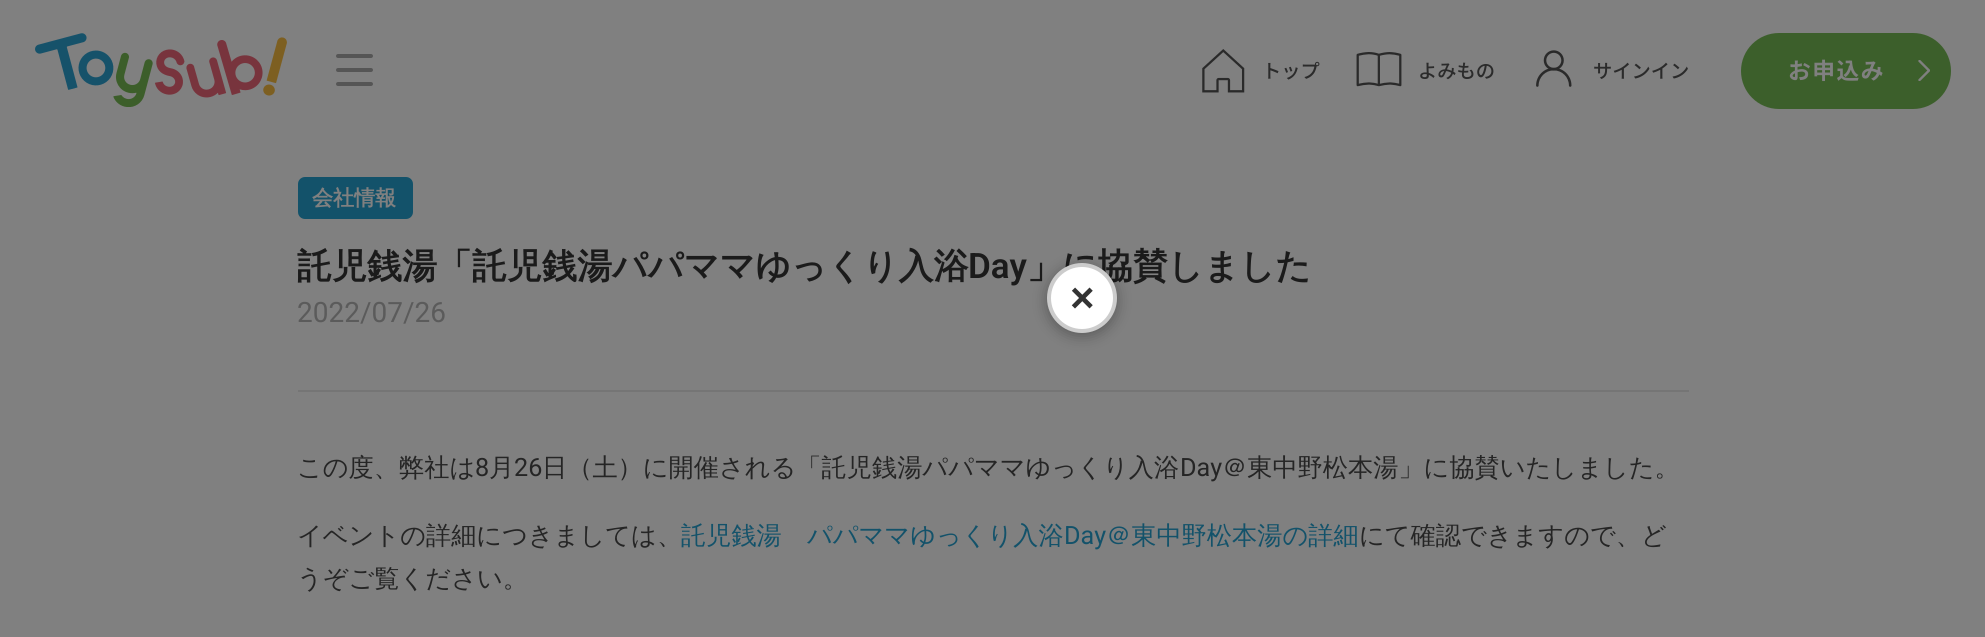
#include <cairo.h>
#include <math.h>
#include <stddef.h>

typedef struct { const char *family; double size; int italic, bold; unsigned color; } style_t;
static cairo_t *ctx;

static void ink(unsigned color) {
    cairo_set_source_rgb(ctx, (color >> 16) / 255.0, (color >> 8 & 255) / 255.0, (color & 255) / 255.0);
}

static void write(double x, double y, const char *s, const style_t *st) {
    cairo_select_font_face(ctx, st->family, st->italic ? CAIRO_FONT_SLANT_ITALIC : CAIRO_FONT_SLANT_NORMAL,
        st->bold ? CAIRO_FONT_WEIGHT_BOLD : CAIRO_FONT_WEIGHT_NORMAL);
    cairo_set_font_size(ctx, st->size);
    ink(st->color);
    cairo_move_to(ctx, x, y);
    cairo_show_text(ctx, s);
}

static void write_spaced(double x, double y, const char *s, double letter, double word) {
    cairo_move_to(ctx, x, y);
    while (*s) {
        char ch[5] = {0};
        int n = 0;
        do ch[n++] = *s++; while ((*s & 0xC0) == 0x80);
        cairo_show_text(ctx, ch);
        cairo_rel_move_to(ctx, letter + word * (*ch == ' '), 0);
    }
}

static void block(double x, double y, double w, double h, unsigned color) {
    ink(color);
    cairo_rectangle(ctx, x, y, w, h);
    cairo_fill(ctx);
}

static void round_path(double x, double y, double w, double h, double r) {
    cairo_new_sub_path(ctx);
    cairo_arc(ctx, x + w - r, y + h - r, r, 0, M_PI / 2);
    cairo_arc(ctx, x + r, y + h - r, r, M_PI / 2, M_PI);
    cairo_arc(ctx, x + r, y + r, r, M_PI, 1.5 * M_PI);
    cairo_arc(ctx, x + w - r, y + r, r, 1.5 * M_PI, 2 * M_PI);
    cairo_close_path(ctx);
}

static void blur_box(double x, double y, double w, double h, double r, double blur, double alpha) {
    cairo_push_group_with_content(ctx, CAIRO_CONTENT_ALPHA);
    cairo_set_operator(ctx, CAIRO_OPERATOR_SOURCE);
    for (int i = 15; i >= -15 && fmin(w, h) + blur * i / 3 > 0; i -= 2) {
        double e = blur * i / 6;
        cairo_set_source_rgba(ctx, 0, 0, 0, alpha * erfc((i - 1) / 8.5) / 2);
        round_path(x - e, y - e, w + 2 * e, h + 2 * e, fmax(0, fmin(r + e + blur * .6, fmin(w, h) / 2 + e)));
        cairo_fill(ctx);
    }
    cairo_pattern_t *soft = cairo_pop_group(ctx);
    cairo_mask(ctx, soft);
    cairo_pattern_destroy(soft);
}

static void paste(const char *path, double x, double y, double w, double h) {
    cairo_surface_t *image = cairo_image_surface_create_from_png(path);
    cairo_save(ctx);
    cairo_set_source_surface(ctx, image, x, y);
    cairo_rectangle(ctx, x, y, w, h);
    cairo_fill(ctx);
    cairo_restore(ctx);
    cairo_surface_destroy(image);
}

static const style_t s1 = {"Noto Sans JP Medium", 19.25, 0, 0, 0x2b2b2b};
static const style_t s2 = {"WenQuanYi Zen Hei", 21, 0, 1, 0x808080};
static const style_t s3 = {"WenQuanYi Zen Hei", 35, 0, 1, 0x1b1b1b};
static const style_t s4 = {"Roboto SemiBold", 35, 0, 0, 0x1b1b1b};
static const style_t s5 = {"Roboto", 28, 0, 0, 0x5b5b5b};
static const style_t s6 = {"WenQuanYi Zen Hei Medium", 25.2, 0, 0, 0x252525};
static const style_t s7 = {"Roboto", 25.2, 0, 0, 0x252525};
static const style_t s8 = {"WenQuanYi Zen Hei Medium", 25.2, 0, 0, 0x13526a};
static const style_t s9 = {"Roboto", 25.2, 0, 0, 0x13526a};
static const style_t s10 = {"Liberation Sans", 42, 0, 1, 0x333333};

int main(void) {
    cairo_surface_t *surface = cairo_image_surface_create(CAIRO_FORMAT_RGB24, 1985, 637);
    ctx = cairo_create(surface);
    cairo_font_options_t *options = cairo_font_options_create();
    cairo_font_options_set_hint_metrics(options, CAIRO_HINT_METRICS_OFF);
    cairo_font_options_set_hint_style(options, CAIRO_HINT_STYLE_NONE);
    cairo_set_font_options(ctx, options);
    cairo_set_miter_limit(ctx, 4);
    ink(0x808080);
    cairo_paint(ctx);
    paste("pic1.png", 35, 33, 252, 74);
    ink(0x555555);
    round_path(336, 68, 37, 4, 2);
    cairo_fill(ctx);
    round_path(336, 54, 37, 4, 2);
    cairo_fill(ctx);
    round_path(336, 82, 37, 4, 2);
    cairo_fill(ctx);
    paste("pic2.png", 1202, 49, 43, 44);
    write(1262, 78, "トップ", &s1);
    paste("pic3.png", 1356, 52, 46, 35);
    write(1418, 78, "よみもの", &s1);
    paste("pic4.png", 1536, 50, 36, 37);
    write(1593, 78, "サインイン", &s1);
    ink(0x3c5f2b);
    round_path(1741, 33, 210, 76, 38);
    cairo_fill(ctx);
    cairo_select_font_face(ctx, "Noto Sans JP", CAIRO_FONT_SLANT_NORMAL, CAIRO_FONT_WEIGHT_BOLD);
    cairo_set_font_size(ctx, 22.75);
    ink(0x808080);
    write_spaced(1788, 79, "お申込み", 1.5, 0);
    cairo_save(ctx);
    cairo_rectangle(ctx, 1916, 60, 14, 21);
    cairo_clip(ctx);
    cairo_new_path(ctx);
    cairo_move_to(ctx, 1919.5, 61);
    cairo_line_to(ctx, 1929, 70.5);
    cairo_line_to(ctx, 1919.5, 80);
    cairo_set_line_width(ctx, 2.4);
    cairo_set_line_cap(ctx, CAIRO_LINE_CAP_ROUND);
    cairo_stroke(ctx);
    cairo_restore(ctx);
    ink(0x13526a);
    round_path(298, 177, 115, 42, 7);
    cairo_fill(ctx);
    write(312, 205, "会社情報", &s2);
    write(297, 278, "託児銭湯「託児銭湯パパママゆっくり入浴", &s3);
    write(968, 278, "Day", &s4);
    write(1027, 278, "」に協賛しました", &s3);
    write(297, 322, "2022/07/26", &s5);
    block(298, 390, 1391, 2, 0x757575);
    write(297, 476, "この度、弊社は", &s6);
    write(475, 476, "8", &s7);
    write(489, 476, "月", &s6);
    write(514, 476, "26", &s7);
    write(542, 476, "日（土）に開催される「託児銭湯パパママゆっくり入浴", &s6);
    write(1180, 476, "Day", &s7);
    write(1222, 476, "＠東中野松本湯」に協賛いたしました。", &s6);
    write(297, 544, "イベントの詳細につきましては、", &s6);
    write(681, 544, "託児銭湯　パパママゆっくり入浴", &s8);
    write(1064, 544, "Day", &s9);
    write(1106, 544, "＠東中野松本湯の詳細", &s8);
    write(1359, 544, "にて確認できますので、ど", &s6);
    write(297, 587, "うぞご覧ください。", &s6);
    ink(0x000000);
    blur_box(1047, 266, 70, 70, 35, 7, 0.3);
    ink(0xffffff);
    cairo_arc(ctx, 1082, 298, 33, 0, 2 * M_PI);
    cairo_fill_preserve(ctx);
    ink(0xcccccc);
    cairo_set_line_width(ctx, 4);
    cairo_stroke(ctx);
    write(1070, 312, "×", &s10);
    cairo_surface_write_to_png(surface, "screenshot.png");
    cairo_font_options_destroy(options);
    cairo_destroy(ctx);
    cairo_surface_destroy(surface);
    return 0;
}
